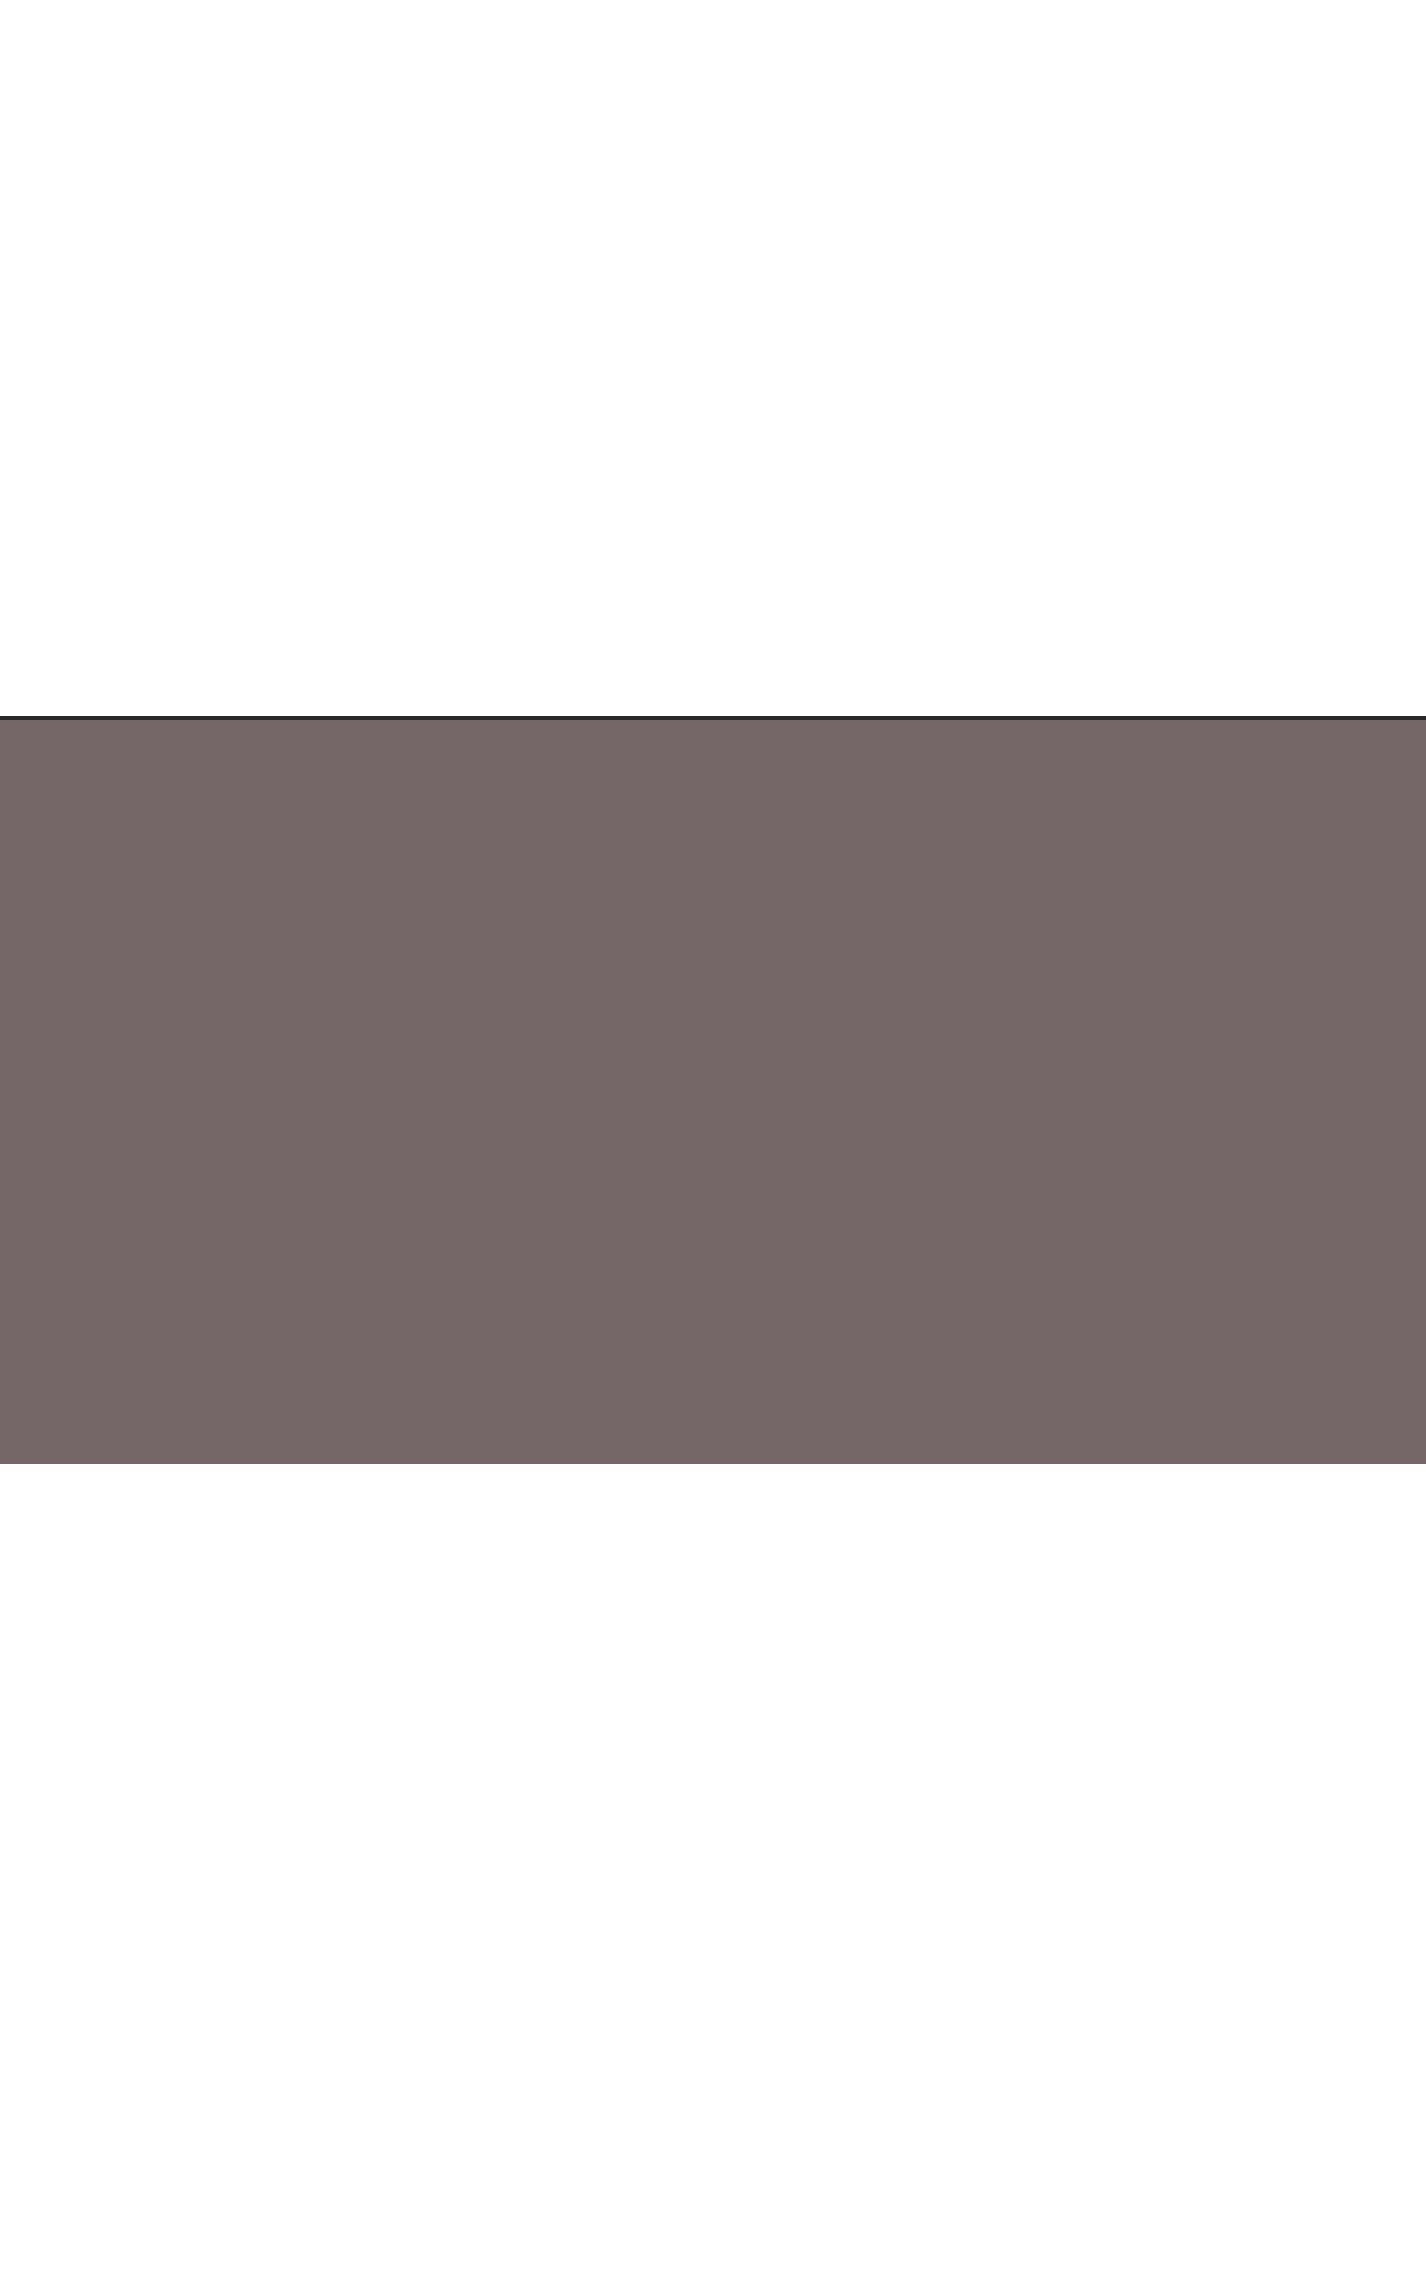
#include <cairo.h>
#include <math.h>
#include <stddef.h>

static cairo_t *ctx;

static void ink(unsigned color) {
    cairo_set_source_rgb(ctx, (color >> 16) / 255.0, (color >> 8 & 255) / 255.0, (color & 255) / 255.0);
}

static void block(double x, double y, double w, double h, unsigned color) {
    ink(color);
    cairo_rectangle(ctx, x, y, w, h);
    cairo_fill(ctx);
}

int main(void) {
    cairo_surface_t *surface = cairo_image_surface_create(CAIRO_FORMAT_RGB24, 1426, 2289);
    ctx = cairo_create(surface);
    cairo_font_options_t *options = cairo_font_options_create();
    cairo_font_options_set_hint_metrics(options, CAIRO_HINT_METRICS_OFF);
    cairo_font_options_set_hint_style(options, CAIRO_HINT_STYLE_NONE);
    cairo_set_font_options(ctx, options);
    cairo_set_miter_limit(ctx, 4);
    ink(0xffffff);
    cairo_paint(ctx);
    block(0, 720, 1426, 744, 0x756767);
    block(0, 716, 1426, 4, 0x292929);
    cairo_surface_write_to_png(surface, "screenshot.png");
    cairo_font_options_destroy(options);
    cairo_destroy(ctx);
    cairo_surface_destroy(surface);
    return 0;
}
